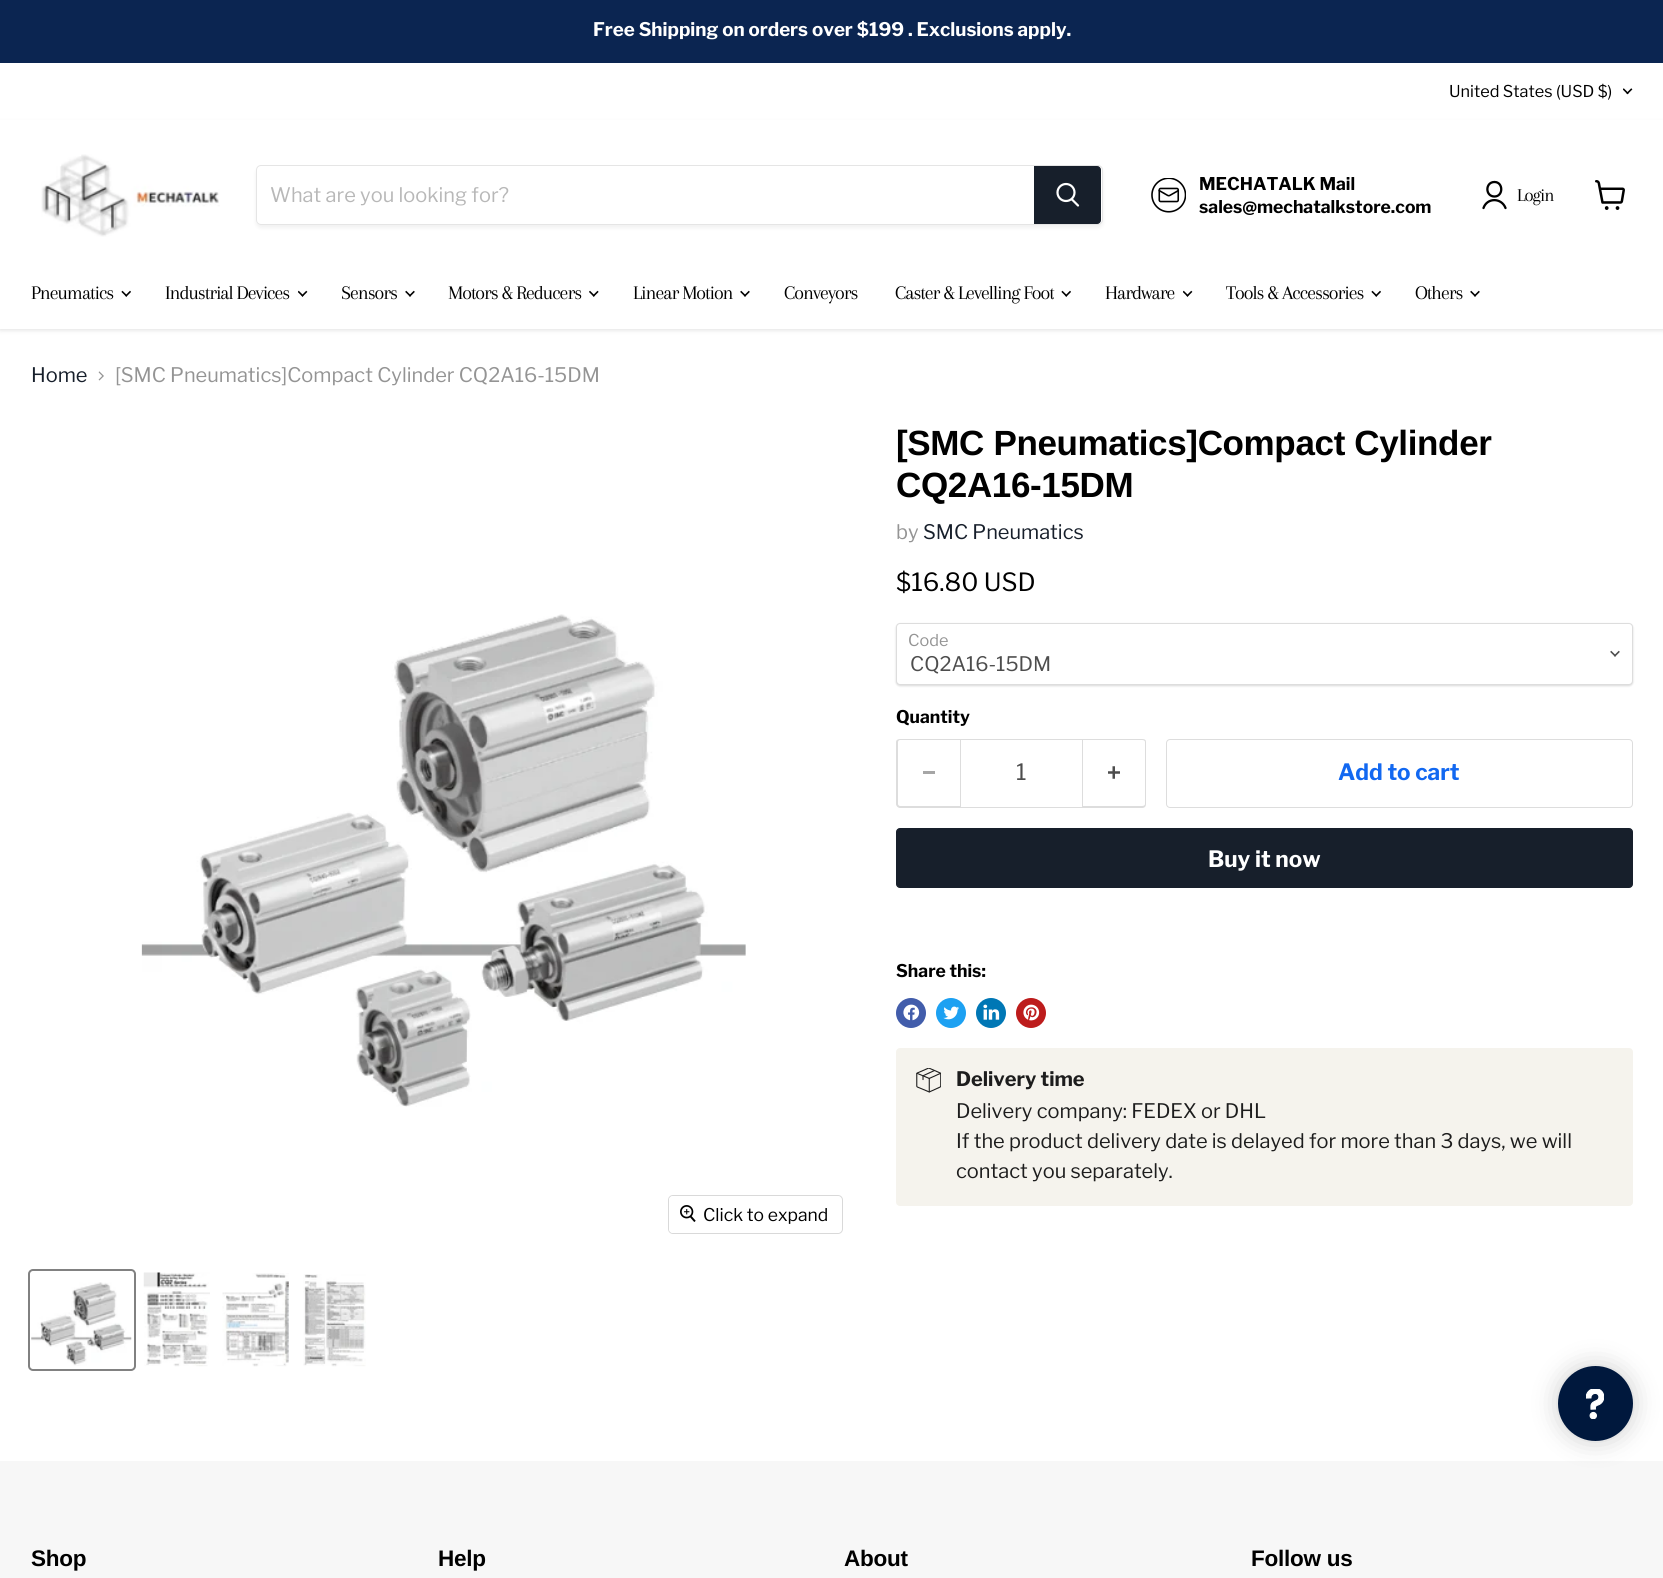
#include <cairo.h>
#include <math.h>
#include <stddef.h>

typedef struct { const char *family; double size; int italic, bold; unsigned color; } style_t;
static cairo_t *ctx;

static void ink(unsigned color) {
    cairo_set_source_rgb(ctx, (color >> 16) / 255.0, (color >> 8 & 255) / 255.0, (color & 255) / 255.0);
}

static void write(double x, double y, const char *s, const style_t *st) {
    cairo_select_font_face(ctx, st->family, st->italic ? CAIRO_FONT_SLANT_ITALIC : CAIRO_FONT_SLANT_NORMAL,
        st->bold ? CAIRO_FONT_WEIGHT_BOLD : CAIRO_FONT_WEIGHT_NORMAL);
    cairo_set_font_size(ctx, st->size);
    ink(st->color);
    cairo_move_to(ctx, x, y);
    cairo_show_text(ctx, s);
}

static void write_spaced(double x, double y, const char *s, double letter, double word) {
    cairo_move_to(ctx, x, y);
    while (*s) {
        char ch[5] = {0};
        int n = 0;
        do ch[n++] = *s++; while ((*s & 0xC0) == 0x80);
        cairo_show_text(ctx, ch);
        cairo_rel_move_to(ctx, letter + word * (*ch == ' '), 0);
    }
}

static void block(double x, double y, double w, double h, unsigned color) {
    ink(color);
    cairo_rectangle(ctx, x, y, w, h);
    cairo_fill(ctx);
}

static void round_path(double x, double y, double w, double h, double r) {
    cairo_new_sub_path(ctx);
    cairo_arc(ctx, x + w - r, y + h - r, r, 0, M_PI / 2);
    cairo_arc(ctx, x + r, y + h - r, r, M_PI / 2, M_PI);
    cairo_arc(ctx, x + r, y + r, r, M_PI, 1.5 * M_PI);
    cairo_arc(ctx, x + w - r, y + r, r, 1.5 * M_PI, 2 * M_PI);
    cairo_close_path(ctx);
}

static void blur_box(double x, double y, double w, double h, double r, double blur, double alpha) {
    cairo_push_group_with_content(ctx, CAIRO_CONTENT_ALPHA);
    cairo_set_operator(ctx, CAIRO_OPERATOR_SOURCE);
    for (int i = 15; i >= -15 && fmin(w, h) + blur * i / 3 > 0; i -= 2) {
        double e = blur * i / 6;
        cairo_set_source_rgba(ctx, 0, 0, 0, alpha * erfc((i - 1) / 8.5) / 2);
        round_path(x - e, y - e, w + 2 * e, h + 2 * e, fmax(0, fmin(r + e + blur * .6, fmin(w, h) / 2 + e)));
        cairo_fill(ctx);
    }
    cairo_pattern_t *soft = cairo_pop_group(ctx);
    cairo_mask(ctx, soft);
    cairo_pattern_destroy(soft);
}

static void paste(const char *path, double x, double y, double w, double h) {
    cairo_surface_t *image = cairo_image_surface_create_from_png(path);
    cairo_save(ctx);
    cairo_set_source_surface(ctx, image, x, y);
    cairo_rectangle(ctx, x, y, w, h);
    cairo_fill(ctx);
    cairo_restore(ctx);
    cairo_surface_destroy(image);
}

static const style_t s1 = {"Libre Franklin", 18.75, 0, 1, 0xffffff};
static const style_t s2 = {"Libre Franklin", 16.25, 0, 0, 0x000000};
static const style_t s3 = {"Libre Franklin", 20, 0, 0, 0xb8b8b8};
static const style_t s4 = {"Libre Franklin", 17.5, 0, 1, 0x000000};
static const style_t s5 = {"Libre Franklin", 20, 0, 0, 0x171f2b};
static const style_t s6 = {"Libre Franklin", 20, 0, 0, 0x949494};
static const style_t s7 = {"Libre Franklin", 25, 0, 0, 0x000000};
static const style_t s8 = {"Libre Franklin", 16.25, 0, 0, 0x949494};
static const style_t s9 = {"Libre Franklin", 20, 0, 0, 0x4d4d4d};
static const style_t s10 = {"Libre Franklin", 22.5, 0, 0, 0x4d4d4d};
static const style_t s11 = {"Libre Franklin", 22.5, 0, 1, 0x1268f1};
static const style_t s12 = {"Libre Franklin", 22.5, 0, 1, 0xffffff};
static const style_t s13 = {"Libre Franklin", 20, 0, 1, 0x1d1d1d};
static const style_t s14 = {"Libre Franklin", 20, 0, 0, 0x1d1d1d};
static const style_t s15 = {"Libre Franklin", 17.5, 0, 0, 0x000000};

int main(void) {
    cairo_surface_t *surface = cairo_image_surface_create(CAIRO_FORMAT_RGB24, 1663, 1578);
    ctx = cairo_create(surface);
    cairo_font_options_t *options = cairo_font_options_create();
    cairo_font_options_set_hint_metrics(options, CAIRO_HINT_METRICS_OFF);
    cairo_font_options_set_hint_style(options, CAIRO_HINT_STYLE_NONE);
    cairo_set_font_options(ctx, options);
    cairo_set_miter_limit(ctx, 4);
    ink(0xffffff);
    cairo_paint(ctx);
    block(0, 0, 1663, 63, 0x0b2551);
    write(593, 36, "Free Shipping on orders over $199 . Exclusions apply.", &s1);
    write(1449, 97, "United States (USD $)", &s2);
    paste("pic1.png", 1623, 88, 10, 7);
    ink(0x808080);
    blur_box(0, 123, 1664, 207, 0, 2.5, 0.25);
    block(0, 120, 1663, 209, 0xffffff);
    paste("pic2.png", 41, 154, 179, 83);
    cairo_save(ctx);
    cairo_set_fill_rule(ctx, CAIRO_FILL_RULE_EVEN_ODD);
    cairo_new_path(ctx);
    cairo_move_to(ctx, 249, 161);
    cairo_line_to(ctx, 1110, 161);
    cairo_line_to(ctx, 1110, 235);
    cairo_line_to(ctx, 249, 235);
    cairo_close_path(ctx);
    cairo_move_to(ctx, 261, 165);
    cairo_line_to(ctx, 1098, 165);
    cairo_curve_to(ctx, 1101, 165, 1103, 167, 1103, 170);
    cairo_line_to(ctx, 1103, 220);
    cairo_curve_to(ctx, 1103, 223, 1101, 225, 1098, 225);
    cairo_line_to(ctx, 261, 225);
    cairo_curve_to(ctx, 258, 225, 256, 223, 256, 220);
    cairo_line_to(ctx, 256, 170);
    cairo_curve_to(ctx, 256, 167, 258, 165, 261, 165);
    cairo_close_path(ctx);
    cairo_clip(ctx);
    ink(0x808080);
    blur_box(256, 168, 847, 60, 5, 2, 0.11);
    cairo_restore(ctx);
    round_path(256.5, 165.5, 846, 59, 4.5);
    cairo_set_source_rgba(ctx, 0.502, 0.502, 0.502, 0.2);
    cairo_set_line_width(ctx, 1);
    cairo_stroke(ctx);
    write(270, 202, "What are you looking for?", &s3);
    ink(0x171f2b);
    cairo_new_path(ctx);
    cairo_move_to(ctx, 1034.5, 166.5);
    cairo_line_to(ctx, 1097, 166.5);
    cairo_curve_to(ctx, 1099, 166.5, 1100.5, 168, 1100.5, 170);
    cairo_line_to(ctx, 1100.5, 220);
    cairo_curve_to(ctx, 1100.5, 222, 1099, 223.5, 1097, 223.5);
    cairo_line_to(ctx, 1034.5, 223.5);
    cairo_close_path(ctx);
    cairo_fill_preserve(ctx);
    cairo_stroke(ctx);
    cairo_new_path(ctx);
    cairo_move_to(ctx, 1078, 205.5);
    cairo_line_to(ctx, 1072, 199.5);
    ink(0xffffff);
    cairo_set_line_width(ctx, 2.2);
    cairo_set_line_cap(ctx, CAIRO_LINE_CAP_ROUND);
    cairo_stroke(ctx);
    cairo_arc(ctx, 1066, 192.5, 8.5, 0, 2 * M_PI);
    cairo_set_line_cap(ctx, CAIRO_LINE_CAP_BUTT);
    cairo_stroke(ctx);
    paste("pic3.png", 1151, 178, 35, 35);
    write(1199, 190, "MECHATALK Mail", &s4);
    write(1199, 213, "sales@mechatalkstore.com", &s4);
    cairo_new_path(ctx);
    cairo_move_to(ctx, 1494.5, 196.5);
    cairo_curve_to(ctx, 1503.5, 196.5, 1503.5, 182, 1494.5, 182);
    cairo_curve_to(ctx, 1485, 182, 1485, 196.5, 1494.5, 196.5);
    cairo_close_path(ctx);
    cairo_move_to(ctx, 1505.5, 208);
    cairo_curve_to(ctx, 1501.5, 197.5, 1487, 197.5, 1483.5, 208);
    cairo_set_line_width(ctx, 2.3);
    cairo_set_line_cap(ctx, CAIRO_LINE_CAP_ROUND);
    cairo_set_line_join(ctx, CAIRO_LINE_JOIN_ROUND);
    cairo_stroke(ctx);
    cairo_select_font_face(ctx, "Arapey", CAIRO_FONT_SLANT_NORMAL, CAIRO_FONT_WEIGHT_NORMAL);
    cairo_set_font_size(ctx, 18.75);
    write_spaced(1517, 201, "Login", -1, 0);
    paste("pic4.png", 1595, 180, 30, 30);
    cairo_set_font_size(ctx, 20);
    write_spaced(31, 299, "Pneumatics", -1, 0);
    paste("pic5.png", 121, 290, 10, 7);
    write_spaced(165, 299, "Industrial Devices", -1, 0);
    paste("pic6.png", 298, 290, 10, 7);
    write_spaced(341, 299, "Sensors", -1, 0);
    paste("pic7.png", 405, 290, 10, 7);
    write_spaced(448, 299, "Motors & Reducers", -1, 0);
    paste("pic8.png", 589, 290, 10, 7);
    write_spaced(633, 299, "Linear Motion", -1, 0);
    paste("pic7.png", 740, 290, 10, 7);
    write_spaced(784, 299, "Conveyors", -1, 0);
    write_spaced(895, 299, "Caster & Levelling Foot", -1, 0);
    paste("pic5.png", 1061, 290, 10, 7);
    write_spaced(1105, 299, "Hardware", -1, 0);
    paste("pic6.png", 1183, 290, 10, 7);
    write_spaced(1226, 299, "Tools & Accessories", -1, 0);
    paste("pic5.png", 1371, 290, 10, 7);
    write_spaced(1415, 299, "Others", -1, 0);
    paste("pic7.png", 1470, 290, 10, 7);
    write(31, 382, "Home", &s5);
    paste("pic9.png", 98, 371, 6, 10);
    write(115, 382, "[SMC Pneumatics]Compact Cylinder CQ2A16-15DM", &s6);
    cairo_select_font_face(ctx, "Arimo", CAIRO_FONT_SLANT_NORMAL, CAIRO_FONT_WEIGHT_BOLD);
    cairo_set_font_size(ctx, 35);
    ink(0x000000);
    write_spaced(896, 455, "[SMC Pneumatics]Compact Cylinder", -0.35, 0);
    write_spaced(896, 497, "CQ2A16-15DM", -0.35, 0);
    write(896, 539, "by", &s6);
    write(923, 539, "SMC Pneumatics", &s5);
    write(896, 591, "$16.80 USD", &s7);
    ink(0x000000);
    blur_box(896, 624, 737, 62, 4, 1, 0.15);
    ink(0xffffff);
    round_path(896.5, 623.5, 736, 61, 3.5);
    cairo_fill_preserve(ctx);
    ink(0xdddddd);
    cairo_set_line_width(ctx, 1);
    cairo_set_line_cap(ctx, CAIRO_LINE_CAP_BUTT);
    cairo_set_line_join(ctx, CAIRO_LINE_JOIN_MITER);
    cairo_stroke(ctx);
    write(908, 646, "Code", &s8);
    paste("pic10.png", 1610, 650, 10, 7);
    write(910, 671, "CQ2A16-15DM", &s9);
    write(896, 723, "Quantity", &s4);
    ink(0xdddddd);
    cairo_set_fill_rule(ctx, CAIRO_FILL_RULE_EVEN_ODD);
    cairo_new_path(ctx);
    cairo_move_to(ctx, 900, 739);
    cairo_line_to(ctx, 960, 739);
    cairo_line_to(ctx, 960, 808);
    cairo_line_to(ctx, 900, 808);
    cairo_curve_to(ctx, 898, 808, 896, 806, 896, 804);
    cairo_line_to(ctx, 896, 742);
    cairo_curve_to(ctx, 896, 740, 898, 739, 900, 739);
    cairo_close_path(ctx);
    cairo_move_to(ctx, 900, 740);
    cairo_line_to(ctx, 960, 740);
    cairo_line_to(ctx, 960, 806);
    cairo_line_to(ctx, 900, 806);
    cairo_curve_to(ctx, 899, 806, 898, 805, 898, 804);
    cairo_line_to(ctx, 898, 742);
    cairo_curve_to(ctx, 898, 741, 899, 740, 900, 740);
    cairo_close_path(ctx);
    cairo_fill(ctx);
    block(923, 771, 12, 3, 0xa6a6a6);
    cairo_rectangle(ctx, 960.5, 739.5, 122, 68);
    ink(0xdddddd);
    cairo_stroke(ctx);
    write(1016, 780, "1", &s10);
    ink(0xdddddd);
    cairo_new_path(ctx);
    cairo_move_to(ctx, 1082, 739);
    cairo_line_to(ctx, 1142, 739);
    cairo_curve_to(ctx, 1145, 739, 1146, 740, 1146, 742);
    cairo_line_to(ctx, 1146, 804);
    cairo_curve_to(ctx, 1146, 806, 1145, 808, 1142, 808);
    cairo_line_to(ctx, 1082, 808);
    cairo_close_path(ctx);
    cairo_move_to(ctx, 1082, 740);
    cairo_line_to(ctx, 1142, 740);
    cairo_curve_to(ctx, 1144, 740, 1145, 741, 1145, 742);
    cairo_line_to(ctx, 1145, 804);
    cairo_curve_to(ctx, 1145, 805, 1144, 806, 1142, 806);
    cairo_line_to(ctx, 1082, 806);
    cairo_close_path(ctx);
    cairo_fill(ctx);
    paste("pic11.png", 1108, 766, 12, 13);
    round_path(1166.5, 739.5, 466, 68, 3.5);
    cairo_stroke(ctx);
    write(1338, 780, "Add to cart", &s11);
    ink(0x171f2b);
    round_path(896.5, 828.5, 736, 59, 3.5);
    cairo_fill_preserve(ctx);
    cairo_stroke(ctx);
    write(1208, 867, "Buy it now", &s12);
    write(896, 977, "Share this:", &s4);
    ink(0x425dab);
    cairo_new_path(ctx);
    cairo_arc(ctx, 911, 1013, 15, 0, 2 * M_PI);
    cairo_fill(ctx);
    paste("pic12.png", 903, 1004, 17, 17);
    ink(0x1da1f2);
    cairo_arc(ctx, 951, 1013, 15, 0, 2 * M_PI);
    cairo_fill(ctx);
    paste("pic13.png", 943, 1006, 16, 14);
    ink(0x0077b5);
    cairo_arc(ctx, 991, 1013, 15, 0, 2 * M_PI);
    cairo_fill(ctx);
    paste("pic14.png", 983, 1004, 17, 16);
    ink(0xbd1c1c);
    cairo_arc(ctx, 1031, 1013, 15, 0, 2 * M_PI);
    cairo_fill(ctx);
    paste("pic15.png", 1023, 1004, 17, 17);
    ink(0xf5f3ed);
    round_path(896, 1048, 737, 158, 4);
    cairo_fill(ctx);
    paste("pic16.png", 916, 1068, 25, 25);
    write(956, 1086, "Delivery time", &s13);
    write(956, 1118, "Delivery company: FEDEX or DHL", &s14);
    write(956, 1148, "If the product delivery date is delayed for more than 3 days, we will", &s14);
    write(956, 1178, "contact you separately.", &s14);
    paste("pic17.png", 141, 614, 605, 493);
    round_path(668.5, 1195.5, 174, 38, 4.5);
    ink(0xd9d9d9);
    cairo_stroke(ctx);
    cairo_set_source_rgba(ctx, 1, 1, 1, 0.9);
    round_path(669, 1196, 172, 37, 4);
    cairo_fill(ctx);
    paste("pic18.png", 680, 1205, 16, 17);
    write(703, 1221, "Click to expand", &s15);
    round_path(29, 1270, 106, 100, 4);
    ink(0x818181);
    cairo_set_line_width(ctx, 2);
    cairo_stroke(ctx);
    paste("pic19.png", 31, 1282, 101, 84);
    paste("pic20.png", 143, 1272, 67, 95);
    paste("pic21.png", 222, 1273, 67, 94);
    paste("pic22.png", 303, 1274, 63, 93);
    block(0, 1461, 1663, 117, 0xf7f7f7);
    ink(0x000000);
    blur_box(1558, 1366, 75, 75, 37.5, 12.5, 0.2);
    ink(0x00183d);
    cairo_arc(ctx, 1595.5, 1403.5, 37.5, 0, 2 * M_PI);
    cairo_fill(ctx);
    paste("pic23.png", 1586, 1389, 18, 30);
    cairo_select_font_face(ctx, "Arimo", CAIRO_FONT_SLANT_NORMAL, CAIRO_FONT_WEIGHT_BOLD);
    cairo_set_font_size(ctx, 22.5);
    ink(0x000000);
    write_spaced(31, 1566, "Shop", -0.25, 0);
    write_spaced(438, 1566, "Help", -0.25, 0);
    write_spaced(844, 1566, "About", -0.25, 0);
    write_spaced(1251, 1566, "Follow us", -0.25, 0);
    cairo_surface_write_to_png(surface, "screenshot.png");
    cairo_font_options_destroy(options);
    cairo_destroy(ctx);
    cairo_surface_destroy(surface);
    return 0;
}
